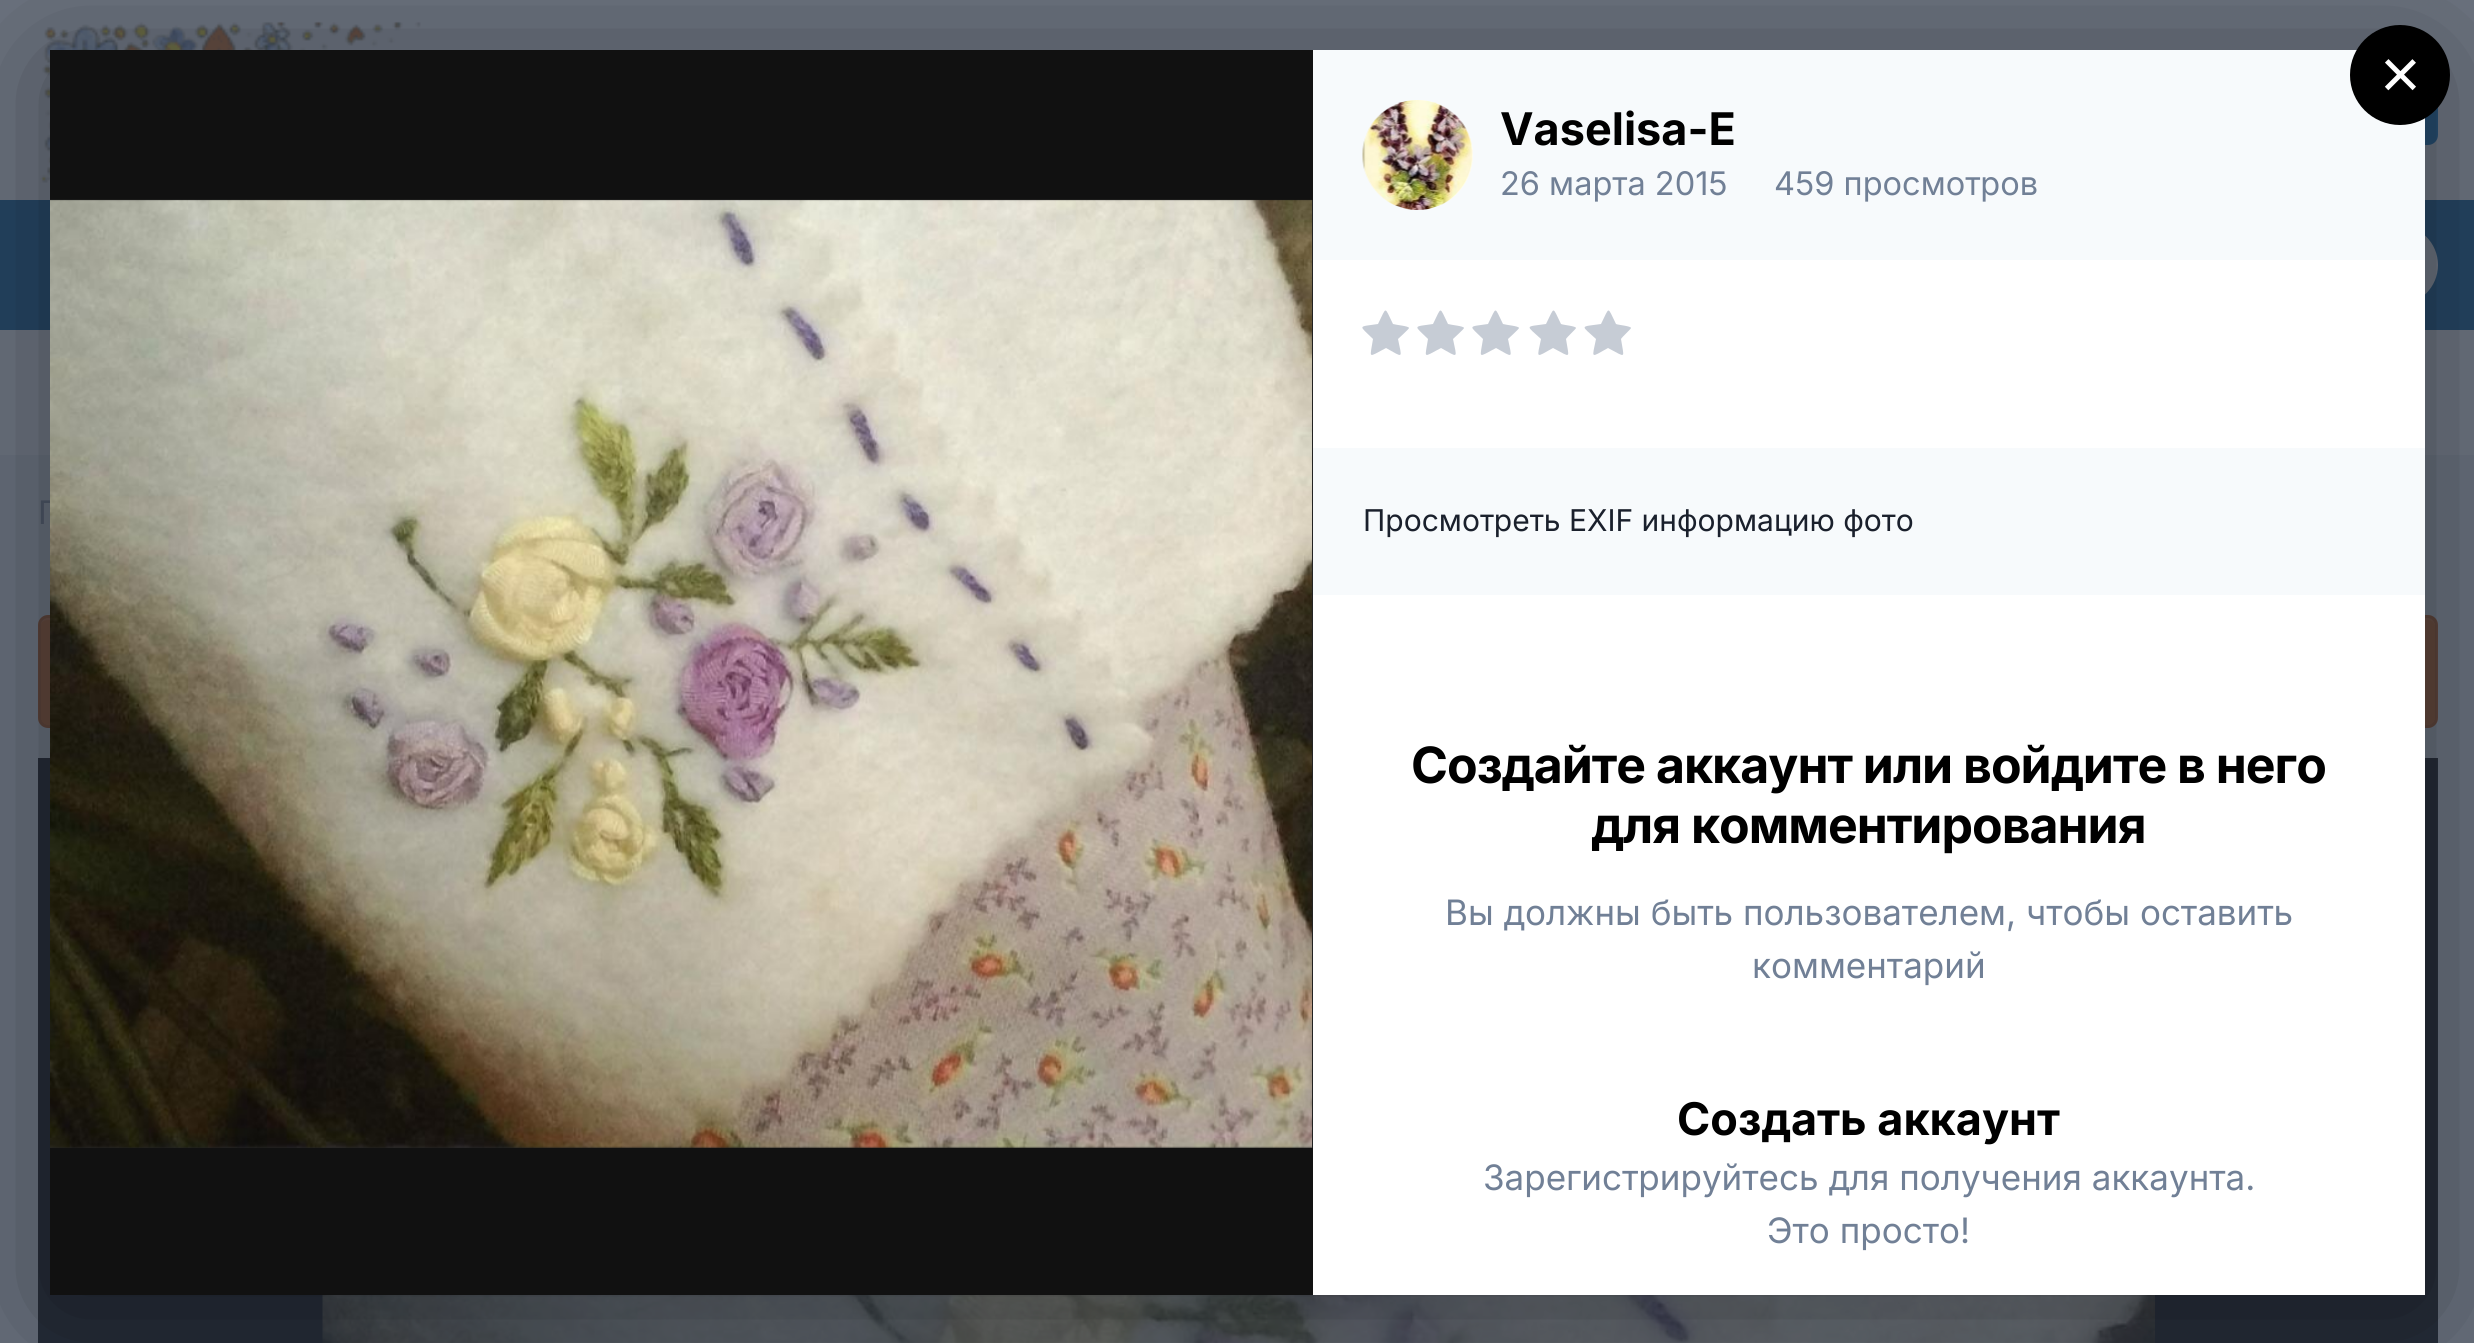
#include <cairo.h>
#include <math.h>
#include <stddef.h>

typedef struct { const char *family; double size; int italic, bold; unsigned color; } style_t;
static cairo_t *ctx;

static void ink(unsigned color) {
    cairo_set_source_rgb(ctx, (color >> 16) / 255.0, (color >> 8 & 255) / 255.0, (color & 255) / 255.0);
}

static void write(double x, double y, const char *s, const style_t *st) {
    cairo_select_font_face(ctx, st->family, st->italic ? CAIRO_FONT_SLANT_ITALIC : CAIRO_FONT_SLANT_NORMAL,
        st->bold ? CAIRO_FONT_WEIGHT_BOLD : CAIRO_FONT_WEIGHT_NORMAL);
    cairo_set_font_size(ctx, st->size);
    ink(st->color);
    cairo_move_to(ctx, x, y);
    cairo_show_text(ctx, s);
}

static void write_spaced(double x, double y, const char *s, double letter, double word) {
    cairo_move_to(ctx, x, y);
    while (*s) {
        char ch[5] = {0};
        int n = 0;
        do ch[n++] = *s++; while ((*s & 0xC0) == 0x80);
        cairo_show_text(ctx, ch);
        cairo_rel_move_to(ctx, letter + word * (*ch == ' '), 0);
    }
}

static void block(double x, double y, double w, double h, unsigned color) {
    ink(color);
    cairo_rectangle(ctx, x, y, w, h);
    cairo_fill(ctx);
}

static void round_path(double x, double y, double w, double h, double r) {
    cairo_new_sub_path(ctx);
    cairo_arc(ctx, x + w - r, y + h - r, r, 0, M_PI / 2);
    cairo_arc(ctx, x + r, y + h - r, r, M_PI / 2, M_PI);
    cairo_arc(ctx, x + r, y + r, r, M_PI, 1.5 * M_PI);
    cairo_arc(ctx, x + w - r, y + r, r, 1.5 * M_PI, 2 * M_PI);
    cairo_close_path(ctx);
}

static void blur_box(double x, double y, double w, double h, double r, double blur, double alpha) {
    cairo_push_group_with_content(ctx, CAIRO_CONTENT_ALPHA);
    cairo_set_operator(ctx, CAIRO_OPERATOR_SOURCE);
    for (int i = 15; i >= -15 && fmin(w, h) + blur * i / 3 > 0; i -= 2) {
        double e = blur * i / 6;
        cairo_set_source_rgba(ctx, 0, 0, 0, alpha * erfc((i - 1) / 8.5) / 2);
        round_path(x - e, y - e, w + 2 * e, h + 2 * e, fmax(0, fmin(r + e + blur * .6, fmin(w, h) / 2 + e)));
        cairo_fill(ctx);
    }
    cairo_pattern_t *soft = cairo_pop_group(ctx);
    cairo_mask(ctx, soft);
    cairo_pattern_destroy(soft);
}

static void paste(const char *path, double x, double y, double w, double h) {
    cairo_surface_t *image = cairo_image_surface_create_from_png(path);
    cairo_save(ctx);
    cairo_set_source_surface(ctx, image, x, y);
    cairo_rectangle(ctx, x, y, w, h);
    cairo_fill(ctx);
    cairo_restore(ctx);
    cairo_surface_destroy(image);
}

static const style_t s1 = {"Inter", 32.5, 0, 0, 0x4d5768};
static const style_t s2 = {"Liberation Sans", 70, 0, 0, 0xffffff};
static const style_t s3 = {"Inter", 45, 0, 1, 0x000000};
static const style_t s4 = {"Inter", 32.5, 0, 0, 0x718096};
static const style_t s5 = {"Inter", 30, 0, 0, 0x1a202c};
static const style_t s6 = {"Inter", 35, 0, 0, 0x718096};

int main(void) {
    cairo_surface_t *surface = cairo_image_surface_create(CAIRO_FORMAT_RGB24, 2474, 1343);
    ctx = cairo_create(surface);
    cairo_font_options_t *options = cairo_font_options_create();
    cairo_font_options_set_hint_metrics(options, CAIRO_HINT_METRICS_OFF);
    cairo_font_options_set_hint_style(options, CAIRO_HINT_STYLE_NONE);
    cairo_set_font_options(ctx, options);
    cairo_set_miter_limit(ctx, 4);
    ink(0x676f7c);
    cairo_paint(ctx);
    block(0, 0, 2474, 200, 0x6c737f);
    paste("pic1.png", 40, 21, 381, 162);
    ink(0x264c6f);
    round_path(2128, 58, 310, 87, 10);
    cairo_fill(ctx);
    block(0, 200, 2474, 130, 0x254563);
    ink(0x6c737f);
    round_path(1788, 225, 650, 80, 40);
    cairo_fill(ctx);
    block(0, 330, 2474, 125, 0x6c737f);
    write(38, 524, "Г", &s1);
    ink(0x62473c);
    round_path(38, 615, 2400, 113, 10);
    cairo_fill(ctx);
    ink(0x634b43);
    cairo_new_path(ctx);
    cairo_move_to(ctx, 48, 620);
    cairo_line_to(ctx, 2428, 620);
    cairo_curve_to(ctx, 2432, 620, 2435, 623, 2435, 628);
    cairo_curve_to(ctx, 2435, 623, 2433, 618, 2427, 618);
    cairo_line_to(ctx, 48, 618);
    cairo_curve_to(ctx, 42, 618, 40, 623, 40, 628);
    cairo_curve_to(ctx, 40, 623, 43, 620, 48, 620);
    cairo_close_path(ctx);
    cairo_fill(ctx);
    round_path(39.5, 616.5, 2397, 110, 8.5);
    cairo_set_source_rgba(ctx, 0.122, 0.153, 0.196, 0.1);
    cairo_set_line_width(ctx, 3);
    cairo_stroke(ctx);
    block(38, 758, 2400, 585, 0x252c38);
    paste("pic2.png", 322, 1295, 1833, 48);
    ink(0x000000);
    blur_box(50, 63, 2375, 1245, 0, 69, 0.4);
    block(1313, 50, 1112, 210, 0xf7fafc);
    ink(0x000000);
    cairo_arc(ctx, 2400, 75, 50, 0, 2 * M_PI);
    cairo_fill(ctx);
    write(2380, 98, "×", &s2);
    block(50, 50, 1263, 1245, 0x111111);
    block(50, 200, 1263, 948, 0x222222);
    paste("pic3.png", 50, 199, 1262, 949);
    block(1313, 260, 1112, 1035, 0xffffff);
    cairo_arc(ctx, 1418, 155, 55, 0, 2 * M_PI);
    cairo_fill(ctx);
    paste("pic4.png", 1362, 100, 111, 110);
    write(1500, 145, "Vaselisa-E", &s3);
    write(1500, 195, "26 марта 2015", &s4);
    write(1774, 195, "459 просмотров", &s4);
    ink(0xc6ccd5);
    cairo_new_path(ctx);
    cairo_move_to(ctx, 1409, 328);
    cairo_curve_to(ctx, 1409, 329, 1400, 337, 1398, 339);
    cairo_curve_to(ctx, 1402, 359, 1404, 358, 1386, 348);
    cairo_curve_to(ctx, 1367, 358, 1370, 359, 1373, 339);
    cairo_curve_to(ctx, 1359, 325, 1357, 327, 1378, 324);
    cairo_curve_to(ctx, 1387, 306, 1384, 306, 1393, 324);
    cairo_curve_to(ctx, 1396, 325, 1409, 326, 1409, 328);
    cairo_close_path(ctx);
    cairo_fill(ctx);
    cairo_new_path(ctx);
    cairo_move_to(ctx, 1464, 328);
    cairo_curve_to(ctx, 1464, 329, 1455, 337, 1453, 339);
    cairo_curve_to(ctx, 1457, 359, 1459, 358, 1441, 348);
    cairo_curve_to(ctx, 1422, 358, 1425, 359, 1428, 339);
    cairo_curve_to(ctx, 1414, 325, 1412, 327, 1433, 324);
    cairo_curve_to(ctx, 1442, 306, 1439, 306, 1448, 324);
    cairo_curve_to(ctx, 1451, 325, 1464, 326, 1464, 328);
    cairo_close_path(ctx);
    cairo_fill(ctx);
    cairo_new_path(ctx);
    cairo_move_to(ctx, 1519, 328);
    cairo_curve_to(ctx, 1519, 329, 1510, 337, 1508, 339);
    cairo_curve_to(ctx, 1512, 359, 1514, 358, 1496, 348);
    cairo_curve_to(ctx, 1477, 358, 1480, 359, 1483, 339);
    cairo_curve_to(ctx, 1469, 325, 1467, 327, 1488, 324);
    cairo_curve_to(ctx, 1497, 306, 1494, 306, 1503, 324);
    cairo_curve_to(ctx, 1506, 325, 1519, 326, 1519, 328);
    cairo_close_path(ctx);
    cairo_fill(ctx);
    cairo_new_path(ctx);
    cairo_move_to(ctx, 1576, 328);
    cairo_curve_to(ctx, 1576, 329, 1567, 337, 1566, 339);
    cairo_curve_to(ctx, 1569, 359, 1572, 358, 1553, 348);
    cairo_curve_to(ctx, 1535, 358, 1537, 359, 1541, 339);
    cairo_curve_to(ctx, 1526, 325, 1524, 327, 1546, 324);
    cairo_curve_to(ctx, 1555, 306, 1552, 306, 1561, 324);
    cairo_curve_to(ctx, 1563, 325, 1576, 326, 1576, 328);
    cairo_close_path(ctx);
    cairo_fill(ctx);
    cairo_new_path(ctx);
    cairo_move_to(ctx, 1631, 328);
    cairo_curve_to(ctx, 1631, 329, 1622, 337, 1621, 339);
    cairo_curve_to(ctx, 1624, 359, 1627, 358, 1608, 348);
    cairo_curve_to(ctx, 1590, 358, 1592, 359, 1596, 339);
    cairo_curve_to(ctx, 1581, 325, 1579, 327, 1601, 324);
    cairo_curve_to(ctx, 1610, 306, 1607, 306, 1616, 324);
    cairo_curve_to(ctx, 1618, 325, 1631, 326, 1631, 328);
    cairo_close_path(ctx);
    cairo_fill(ctx);
    block(1313, 448, 1112, 147, 0xf7fafc);
    write(1363, 531, "Просмотреть EXIF информацию фото", &s5);
    cairo_select_font_face(ctx, "Inter", CAIRO_FONT_SLANT_NORMAL, CAIRO_FONT_WEIGHT_BOLD);
    cairo_set_font_size(ctx, 50);
    ink(0x000000);
    write_spaced(1411, 783, "Создайте аккаунт или войдите в него", -1, 0);
    write_spaced(1591, 843, "для комментирования", -1, 0);
    write(1445, 925, "Вы должны быть пользователем, чтобы оставить", &s6);
    write(1752, 978, "комментарий", &s6);
    write(1677, 1135, "Создать аккаунт", &s3);
    write(1483, 1190, "Зарегистрируйтесь для получения аккаунта.", &s6);
    write(1767, 1243, "Это просто!", &s6);
    cairo_surface_write_to_png(surface, "screenshot.png");
    cairo_font_options_destroy(options);
    cairo_destroy(ctx);
    cairo_surface_destroy(surface);
    return 0;
}
